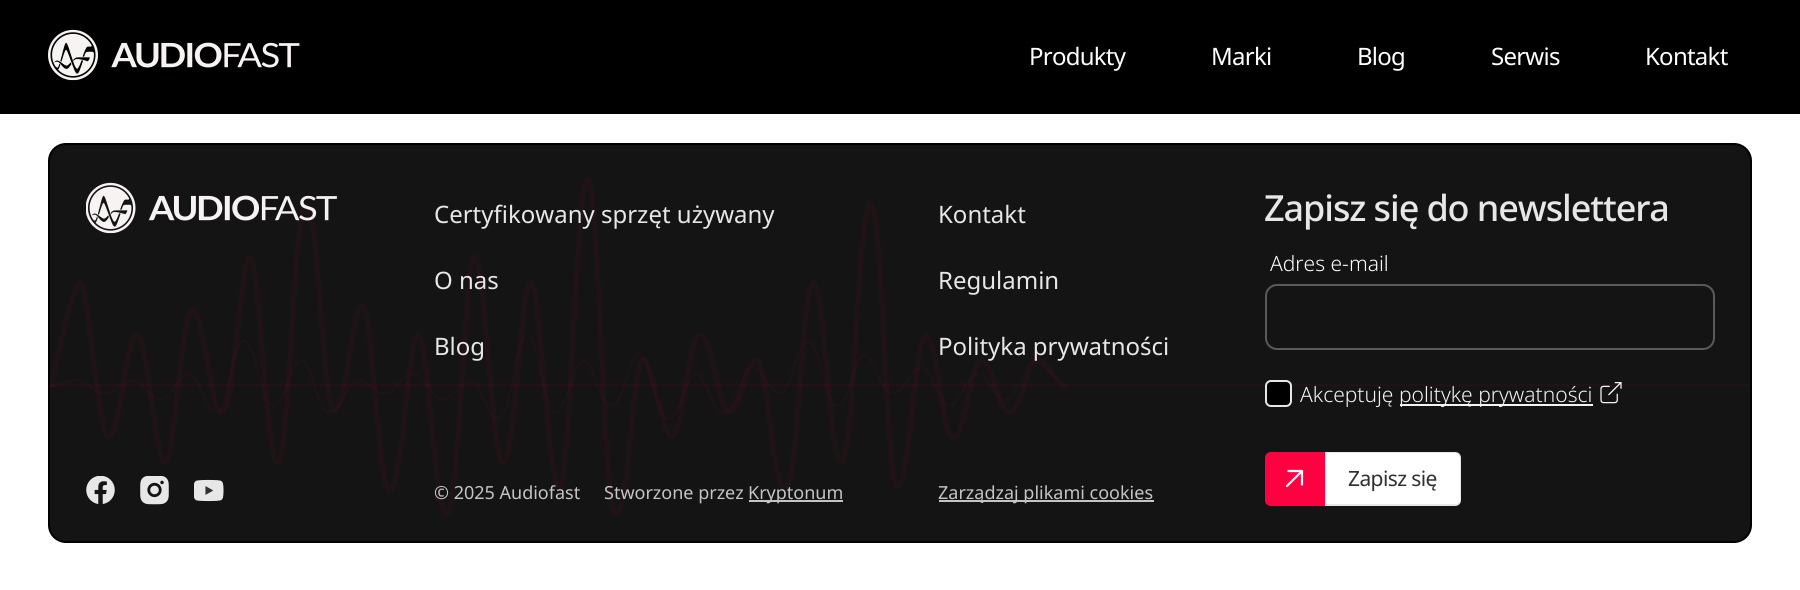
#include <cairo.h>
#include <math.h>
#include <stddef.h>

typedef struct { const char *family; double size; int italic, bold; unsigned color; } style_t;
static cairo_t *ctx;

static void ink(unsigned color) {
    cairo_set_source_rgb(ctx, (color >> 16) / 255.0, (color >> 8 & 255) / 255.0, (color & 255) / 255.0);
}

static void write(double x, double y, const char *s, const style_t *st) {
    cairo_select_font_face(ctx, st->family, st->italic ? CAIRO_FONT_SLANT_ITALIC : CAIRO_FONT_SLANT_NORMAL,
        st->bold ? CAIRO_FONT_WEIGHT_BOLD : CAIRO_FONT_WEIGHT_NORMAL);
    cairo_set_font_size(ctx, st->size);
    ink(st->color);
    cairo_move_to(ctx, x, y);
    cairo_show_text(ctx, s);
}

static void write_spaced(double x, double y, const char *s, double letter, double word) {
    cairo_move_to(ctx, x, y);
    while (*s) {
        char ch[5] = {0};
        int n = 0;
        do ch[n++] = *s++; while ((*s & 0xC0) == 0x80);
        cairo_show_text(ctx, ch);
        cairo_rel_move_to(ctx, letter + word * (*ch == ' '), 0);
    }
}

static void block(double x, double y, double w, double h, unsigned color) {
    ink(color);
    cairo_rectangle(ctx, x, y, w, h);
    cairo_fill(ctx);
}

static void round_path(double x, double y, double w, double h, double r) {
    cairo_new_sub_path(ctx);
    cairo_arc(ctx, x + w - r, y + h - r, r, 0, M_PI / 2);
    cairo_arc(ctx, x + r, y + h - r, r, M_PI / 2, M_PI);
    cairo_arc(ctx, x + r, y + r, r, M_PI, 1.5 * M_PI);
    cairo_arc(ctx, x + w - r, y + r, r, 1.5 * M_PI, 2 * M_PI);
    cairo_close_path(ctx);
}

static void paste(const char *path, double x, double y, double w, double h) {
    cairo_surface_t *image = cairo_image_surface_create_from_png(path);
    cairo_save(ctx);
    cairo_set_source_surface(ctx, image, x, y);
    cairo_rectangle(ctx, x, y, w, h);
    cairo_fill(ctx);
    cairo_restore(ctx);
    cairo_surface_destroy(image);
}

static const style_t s1 = {"Noto Sans", 24, 0, 0, 0xe7e7e7};
static const style_t s2 = {"Noto Sans Light", 21, 0, 0, 0xffffff};
static const style_t s3 = {"Noto Sans Light", 21, 0, 0, 0xf7f3f3};
static const style_t s4 = {"Noto Sans", 18, 0, 0, 0xc5c5c5};

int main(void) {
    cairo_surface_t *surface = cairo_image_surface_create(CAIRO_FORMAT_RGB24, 1800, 590);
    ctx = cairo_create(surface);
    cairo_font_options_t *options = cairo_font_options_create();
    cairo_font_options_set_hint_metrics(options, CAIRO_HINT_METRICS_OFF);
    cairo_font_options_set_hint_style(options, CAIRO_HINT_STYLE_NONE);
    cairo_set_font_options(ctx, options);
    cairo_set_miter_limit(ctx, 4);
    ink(0xffffff);
    cairo_paint(ctx);
    block(0, 0, 1800, 114, 0x000000);
    paste("pic1.png", 48, 29, 252, 52);
    cairo_select_font_face(ctx, "Noto Sans", CAIRO_FONT_SLANT_NORMAL, CAIRO_FONT_WEIGHT_NORMAL);
    cairo_set_font_size(ctx, 24);
    ink(0xffffff);
    write_spaced(1029, 65, "Produkty", -0.75, 0);
    write_spaced(1211, 65, "Marki", -0.75, 0);
    write_spaced(1357, 65, "Blog", -0.75, 0);
    write_spaced(1491, 65, "Serwis", -0.75, 0);
    write_spaced(1645, 65, "Kontakt", -0.75, 0);
    ink(0x141414);
    round_path(49, 144, 1702, 398, 17);
    cairo_fill_preserve(ctx);
    ink(0x000000);
    cairo_stroke(ctx);
    paste("pic2.png", 50, 177, 1700, 339);
    paste("pic3.png", 86, 182, 251, 52);
    paste("pic4.png", 86, 476, 29, 28);
    paste("pic5.png", 140, 476, 29, 29);
    paste("pic6.png", 194, 479, 30, 23);
    write(434, 223, "Certyfikowany sprzęt używany", &s1);
    write(434, 289, "O nas", &s1);
    write(434, 355, "Blog", &s1);
    write(938, 223, "Kontakt", &s1);
    write(938, 289, "Regulamin", &s1);
    write(938, 355, "Polityka prywatności", &s1);
    cairo_select_font_face(ctx, "Noto Sans Medium", CAIRO_FONT_SLANT_NORMAL, CAIRO_FONT_WEIGHT_NORMAL);
    cairo_set_font_size(ctx, 36);
    write_spaced(1264, 221, "Zapisz się do newslettera", -1.1, 0);
    write(1270, 271, "Adres e-mail", &s2);
    ink(0x202020);
    cairo_new_path(ctx);
    cairo_move_to(ctx, 1276, 286);
    cairo_line_to(ctx, 1702, 286);
    cairo_curve_to(ctx, 1708, 286, 1713, 291, 1713, 297);
    cairo_line_to(ctx, 1713, 296);
    cairo_curve_to(ctx, 1713, 290, 1708, 285, 1702, 285);
    cairo_line_to(ctx, 1277, 285);
    cairo_curve_to(ctx, 1271, 285, 1266, 290, 1266, 296);
    cairo_line_to(ctx, 1266, 297);
    cairo_curve_to(ctx, 1266, 291, 1271, 286, 1276, 286);
    cairo_close_path(ctx);
    cairo_fill(ctx);
    round_path(1266, 285, 448, 64, 11);
    ink(0x5b5a5a);
    cairo_stroke(ctx);
    ink(0x000000);
    round_path(1266, 381, 25, 25, 5);
    cairo_fill_preserve(ctx);
    ink(0xe7e7e7);
    cairo_stroke(ctx);
    write(1300, 402, "Akceptuję", &s3);
    block(1400, 404, 193, 2, 0xf7f3f3);
    write(1399, 402, "politykę prywatności", &s3);
    paste("pic7.png", 1600, 382, 22, 22);
    ink(0xfe0140);
    cairo_new_path(ctx);
    cairo_move_to(ctx, 1271, 452);
    cairo_line_to(ctx, 1325, 452);
    cairo_line_to(ctx, 1325, 506);
    cairo_line_to(ctx, 1271, 506);
    cairo_curve_to(ctx, 1267.5, 506, 1265, 503.5, 1265, 500);
    cairo_line_to(ctx, 1265, 458);
    cairo_curve_to(ctx, 1265, 454.5, 1267.5, 452, 1271, 452);
    cairo_close_path(ctx);
    cairo_fill(ctx);
    cairo_new_path(ctx);
    cairo_move_to(ctx, 1302, 471);
    cairo_line_to(ctx, 1287, 486);
    cairo_move_to(ctx, 1288.5, 471);
    cairo_line_to(ctx, 1302, 471);
    cairo_line_to(ctx, 1302, 484.5);
    ink(0xffffff);
    cairo_set_line_width(ctx, 2.2);
    cairo_set_line_cap(ctx, CAIRO_LINE_CAP_ROUND);
    cairo_set_line_join(ctx, CAIRO_LINE_JOIN_ROUND);
    cairo_stroke(ctx);
    ink(0xe7e7e7);
    cairo_new_path(ctx);
    cairo_move_to(ctx, 1325, 452);
    cairo_line_to(ctx, 1455, 452);
    cairo_curve_to(ctx, 1458.5, 452, 1461, 454.5, 1461, 458);
    cairo_line_to(ctx, 1461, 500);
    cairo_curve_to(ctx, 1461, 503.5, 1458.5, 506, 1455, 506);
    cairo_line_to(ctx, 1325, 506);
    cairo_close_path(ctx);
    cairo_fill(ctx);
    ink(0xffffff);
    cairo_new_path(ctx);
    cairo_move_to(ctx, 1326, 453);
    cairo_line_to(ctx, 1456, 453);
    cairo_curve_to(ctx, 1458, 453, 1460, 455, 1460, 457);
    cairo_line_to(ctx, 1460, 500);
    cairo_curve_to(ctx, 1460, 502, 1458, 504, 1456, 504);
    cairo_line_to(ctx, 1326, 504);
    cairo_close_path(ctx);
    cairo_fill(ctx);
    cairo_select_font_face(ctx, "Noto Sans", CAIRO_FONT_SLANT_NORMAL, CAIRO_FONT_WEIGHT_NORMAL);
    ink(0x303030);
    write_spaced(1348, 486, "Zapisz się", -0.6, 0);
    write(434, 499, "© 2025 Audiofast", &s4);
    write(604, 499, "Stworzone przez", &s4);
    block(749, 500, 94, 2, 0xc5c5c5);
    write(748, 499, "Kryptonum", &s4);
    block(939, 500, 215, 2, 0xc5c5c5);
    write(938, 499, "Zarządzaj plikami cookies", &s4);
    cairo_surface_write_to_png(surface, "screenshot.png");
    cairo_font_options_destroy(options);
    cairo_destroy(ctx);
    cairo_surface_destroy(surface);
    return 0;
}
